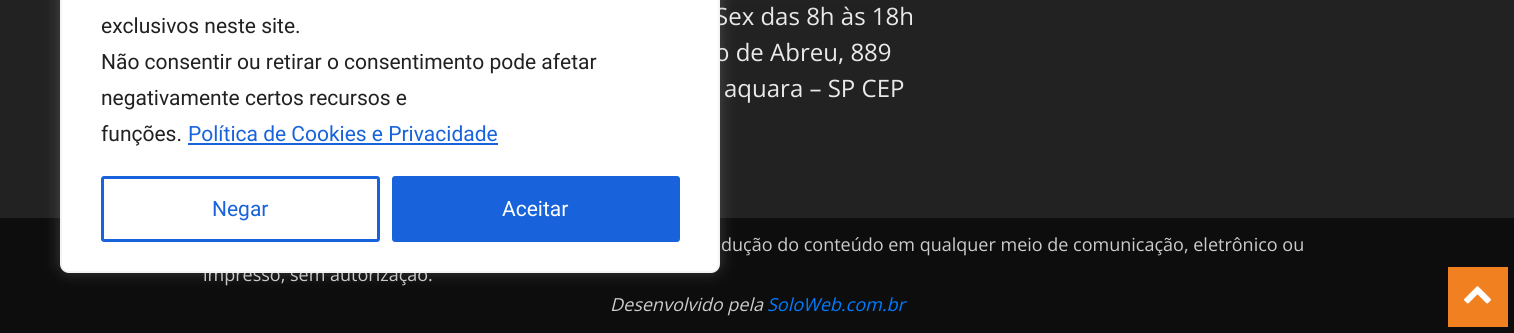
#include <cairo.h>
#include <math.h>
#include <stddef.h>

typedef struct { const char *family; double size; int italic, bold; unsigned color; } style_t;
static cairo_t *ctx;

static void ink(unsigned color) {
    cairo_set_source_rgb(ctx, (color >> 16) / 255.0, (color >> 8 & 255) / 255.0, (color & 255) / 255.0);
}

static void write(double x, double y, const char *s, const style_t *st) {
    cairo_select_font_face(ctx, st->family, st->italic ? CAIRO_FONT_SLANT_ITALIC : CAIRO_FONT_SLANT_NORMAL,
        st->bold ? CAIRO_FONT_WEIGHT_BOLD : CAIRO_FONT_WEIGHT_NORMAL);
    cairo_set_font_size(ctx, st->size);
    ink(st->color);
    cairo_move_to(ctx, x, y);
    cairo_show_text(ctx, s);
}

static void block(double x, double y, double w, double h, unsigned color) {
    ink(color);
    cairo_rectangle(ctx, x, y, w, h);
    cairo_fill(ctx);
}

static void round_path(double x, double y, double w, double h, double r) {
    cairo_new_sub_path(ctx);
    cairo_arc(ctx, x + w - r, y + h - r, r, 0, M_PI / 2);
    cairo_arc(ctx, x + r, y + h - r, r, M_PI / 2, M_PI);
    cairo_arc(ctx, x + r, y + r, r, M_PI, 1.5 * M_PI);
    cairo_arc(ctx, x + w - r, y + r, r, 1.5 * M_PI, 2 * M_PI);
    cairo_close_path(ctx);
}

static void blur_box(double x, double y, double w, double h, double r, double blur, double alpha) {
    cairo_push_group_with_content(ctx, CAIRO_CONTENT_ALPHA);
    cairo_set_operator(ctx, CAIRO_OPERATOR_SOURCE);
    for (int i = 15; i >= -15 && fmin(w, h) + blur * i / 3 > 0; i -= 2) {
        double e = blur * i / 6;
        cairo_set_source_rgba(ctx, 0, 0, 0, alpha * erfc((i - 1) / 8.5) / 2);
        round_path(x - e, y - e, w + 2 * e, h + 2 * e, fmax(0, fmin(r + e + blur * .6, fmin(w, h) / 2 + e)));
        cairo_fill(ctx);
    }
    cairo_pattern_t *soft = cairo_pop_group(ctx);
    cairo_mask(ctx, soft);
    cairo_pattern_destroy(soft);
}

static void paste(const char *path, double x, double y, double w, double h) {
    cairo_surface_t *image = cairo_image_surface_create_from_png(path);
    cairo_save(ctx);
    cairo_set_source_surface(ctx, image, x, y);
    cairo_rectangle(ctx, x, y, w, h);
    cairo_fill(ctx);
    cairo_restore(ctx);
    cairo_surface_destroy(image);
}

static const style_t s1 = {"Open Sans", 24, 0, 0, 0xeaeaea};
static const style_t s2 = {"Open Sans", 18, 0, 0, 0xcccccc};
static const style_t s3 = {"Open Sans", 18, 1, 0, 0xcccccc};
static const style_t s4 = {"Open Sans", 18, 1, 0, 0x007bff};
static const style_t s5 = {"Roboto", 21, 0, 0, 0x212121};
static const style_t s6 = {"Roboto", 21, 0, 0, 0x1863dc};
static const style_t s7 = {"Roboto", 21, 0, 0, 0xffffff};

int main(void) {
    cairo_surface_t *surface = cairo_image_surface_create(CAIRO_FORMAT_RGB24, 1514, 333);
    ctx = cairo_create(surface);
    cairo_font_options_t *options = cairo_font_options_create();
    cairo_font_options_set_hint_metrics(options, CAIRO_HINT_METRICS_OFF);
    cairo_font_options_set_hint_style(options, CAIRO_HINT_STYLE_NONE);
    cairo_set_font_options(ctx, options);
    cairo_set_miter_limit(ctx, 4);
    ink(0x0d0d0d);
    cairo_paint(ctx);
    block(0, 0, 1514, 218, 0x222222);
    write(715, 25, "Sex das 8h às 18h", &s1);
    write(715, 61, "o de Abreu, 889", &s1);
    write(724, 97, "aquara – SP CEP", &s1);
    write(721, 251, "dução do conteúdo em qualquer meio de comunicação, eletrônico ou", &s2);
    write(203, 281, "impresso, sem autorização.", &s2);
    write(610, 311, "Desenvolvido pela", &s3);
    write(767, 311, "SoloWeb.com.br", &s4);
    paste("pic1.png", 720, 6, 189, 7);
    ink(0xacabab);
    blur_box(60, -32, 660, 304, 9, 7.5, 0.3);
    ink(0xffffff);
    round_path(61, -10, 658, 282, 8);
    cairo_fill_preserve(ctx);
    ink(0xf4f4f4);
    cairo_stroke(ctx);
    write(101, 33, "exclusivos neste site.", &s5);
    write(101, 69, "Não consentir ou retirar o consentimento pode afetar", &s5);
    write(101, 105, "negativamente certos recursos e", &s5);
    write(101, 141, "funções.", &s5);
    write(188, 141, "Política de Cookies e Privacidade", &s6);
    block(188, 143, 310, 2, 0x1863dc);
    round_path(102.5, 177.5, 276, 63, 1.5);
    cairo_set_line_width(ctx, 3);
    cairo_stroke(ctx);
    write(212, 216, "Negar", &s6);
    round_path(393.5, 177.5, 285, 63, 1.5);
    cairo_fill_preserve(ctx);
    cairo_stroke(ctx);
    write(502, 216, "Aceitar", &s7);
    block(1448, 267, 60, 60, 0xf08020);
    paste("pic2.png", 1464, 286, 27, 18);
    cairo_surface_write_to_png(surface, "screenshot.png");
    cairo_font_options_destroy(options);
    cairo_destroy(ctx);
    cairo_surface_destroy(surface);
    return 0;
}
